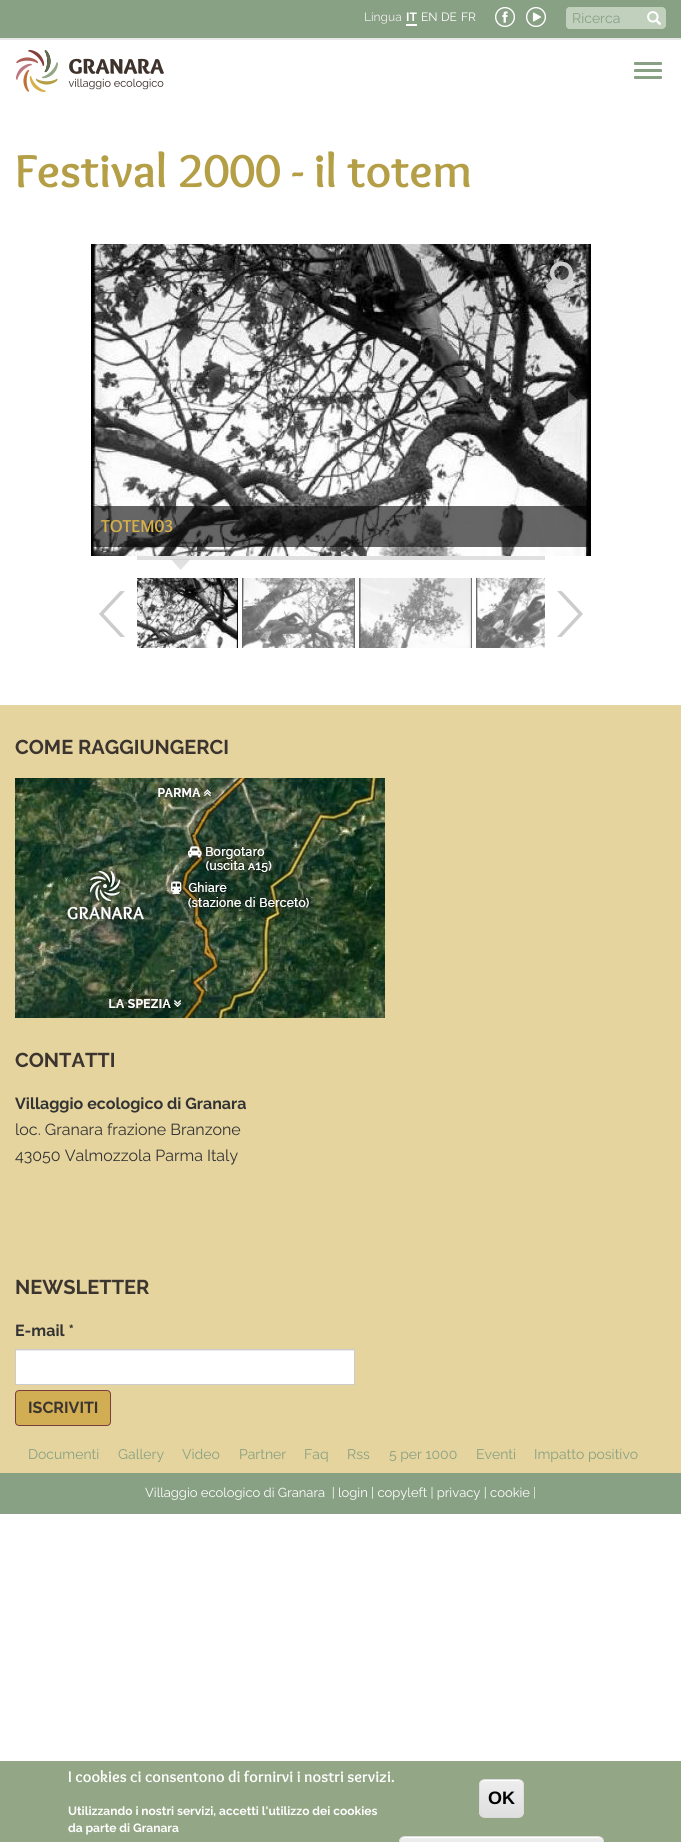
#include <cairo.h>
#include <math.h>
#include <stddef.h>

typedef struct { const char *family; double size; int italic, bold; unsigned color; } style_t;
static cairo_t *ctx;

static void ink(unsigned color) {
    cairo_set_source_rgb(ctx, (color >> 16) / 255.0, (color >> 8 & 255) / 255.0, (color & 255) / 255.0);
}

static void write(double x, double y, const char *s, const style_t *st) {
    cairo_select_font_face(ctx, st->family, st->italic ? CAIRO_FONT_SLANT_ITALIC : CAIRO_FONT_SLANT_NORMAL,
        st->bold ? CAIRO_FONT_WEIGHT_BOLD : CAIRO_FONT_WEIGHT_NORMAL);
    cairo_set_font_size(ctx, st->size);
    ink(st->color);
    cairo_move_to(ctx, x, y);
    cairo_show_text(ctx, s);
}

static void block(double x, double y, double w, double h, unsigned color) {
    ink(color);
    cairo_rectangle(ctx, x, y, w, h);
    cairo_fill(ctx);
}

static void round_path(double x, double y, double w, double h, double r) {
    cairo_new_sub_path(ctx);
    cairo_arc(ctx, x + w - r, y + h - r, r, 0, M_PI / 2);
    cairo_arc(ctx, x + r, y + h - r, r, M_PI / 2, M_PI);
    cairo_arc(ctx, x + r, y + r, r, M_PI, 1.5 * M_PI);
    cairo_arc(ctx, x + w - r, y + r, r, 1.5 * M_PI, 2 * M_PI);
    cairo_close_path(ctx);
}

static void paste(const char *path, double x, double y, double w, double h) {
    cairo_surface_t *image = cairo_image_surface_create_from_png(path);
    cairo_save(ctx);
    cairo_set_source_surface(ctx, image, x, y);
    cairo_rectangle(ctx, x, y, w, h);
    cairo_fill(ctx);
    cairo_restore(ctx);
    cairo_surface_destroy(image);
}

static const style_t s1 = {"Raleway", 12, 0, 0, 0xeeeeee};
static const style_t s2 = {"Raleway", 12, 0, 1, 0xffffff};
static const style_t s3 = {"Raleway", 12, 0, 0, 0xffffff};
static const style_t s4 = {"Raleway", 14, 0, 0, 0x88a083};
static const style_t s5 = {"Overlock", 48, 0, 1, 0xb49e46};
static const style_t s6 = {"Overlock", 18, 0, 1, 0xd6b048};
static const style_t s7 = {"Raleway", 20, 0, 1, 0x3c342f};
static const style_t s8 = {"Raleway", 16, 0, 1, 0x333333};
static const style_t s9 = {"Raleway", 16, 0, 0, 0x333333};
static const style_t s10 = {"Raleway", 16, 0, 1, 0x3c342f};
static const style_t s11 = {"Raleway", 13, 0, 0, 0xffffff};
static const style_t s12 = {"Overlock", 16, 0, 1, 0xffffff};
static const style_t s13 = {"Liberation Sans", 18, 0, 1, 0x000000};

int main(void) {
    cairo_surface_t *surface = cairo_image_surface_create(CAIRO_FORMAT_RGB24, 681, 1842);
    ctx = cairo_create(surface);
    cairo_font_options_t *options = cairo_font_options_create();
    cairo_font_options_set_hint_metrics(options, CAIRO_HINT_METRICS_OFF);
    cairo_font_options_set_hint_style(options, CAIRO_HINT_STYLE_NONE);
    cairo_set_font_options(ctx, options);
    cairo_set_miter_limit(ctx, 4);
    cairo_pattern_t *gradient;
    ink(0xffffff);
    cairo_paint(ctx);
    block(0, 0, 681, 38, 0x88a083);
    block(0, 38, 681, 2, 0xe7e7e7);
    write(364, 21, "Lingua", &s1);
    write(406, 21, "IT", &s2);
    block(406, 24, 11, 2, 0xffffff);
    write(421, 21, "EN", &s3);
    write(441, 21, "DE", &s3);
    write(461, 21, "FR", &s3);
    paste("pic1.png", 495, 7, 20, 20);
    paste("pic2.png", 526, 7, 20, 20);
    ink(0xc1d0bc);
    round_path(566, 7, 100, 22, 4);
    cairo_fill(ctx);
    round_path(566.5, 7.5, 75, 21, 3.5);
    cairo_fill_preserve(ctx);
    cairo_set_line_width(ctx, 1);
    cairo_stroke(ctx);
    write(572, 23, "Ricerca", &s4);
    paste("pic3.png", 647, 11, 14, 14);
    paste("pic4.png", 16, 50, 148, 42);
    round_path(634, 62, 28, 3, 1);
    cairo_fill(ctx);
    round_path(634, 69, 28, 3, 1);
    cairo_fill(ctx);
    round_path(634, 76, 28, 3, 1);
    cairo_fill(ctx);
    write(15, 187, "Festival 2000 - il totem", &s5);
    paste("pic7.png", 91, 244, 500, 312);
    paste("pic5.png", 97, 392, 17, 31);
    paste("pic6.png", 568, 391, 17, 31);
    paste("pic8.png", 546, 261, 27, 27);
    cairo_set_source_rgba(ctx, 0, 0, 0, 0.6);
    cairo_rectangle(ctx, 91, 506, 500, 41);
    cairo_fill(ctx);
    write(101, 532, "TOTEM03", &s6);
    paste("pic9.png", 99, 591, 26, 46);
    block(137, 556, 408, 4, 0xe0e0e0);
    paste("pic10.png", 171, 559, 20, 11);
    paste("pic11.png", 137, 578, 101, 70);
    paste("pic12.png", 242, 578, 113, 70);
    paste("pic13.png", 359, 578, 113, 70);
    paste("pic14.png", 476, 578, 69, 70);
    paste("pic15.png", 557, 591, 26, 46);
    block(0, 705, 681, 768, 0xe5d49e);
    write(15, 754, "COME RAGGIUNGERCI", &s7);
    paste("pic16.png", 15, 778, 370, 240);
    write(15, 1067, "CONTATTI", &s7);
    write(15, 1109, "Villaggio ecologico di Granara", &s8);
    write(15, 1135, "loc. Granara frazione Branzone", &s9);
    write(15, 1161, "43050 Valmozzola Parma Italy", &s9);
    write(15, 1294, "NEWSLETTER", &s7);
    write(15, 1336, "E-mail *", &s8);
    block(16, 1351, 338, 33, 0xffffff);
    block(16, 1350, 338, 1, 0xececec);
    cairo_rectangle(ctx, 15.5, 1349.5, 339, 35);
    ink(0xcccccc);
    cairo_stroke(ctx);
    ink(0xd1ad53);
    round_path(15.5, 1390.5, 95, 35, 3.5);
    cairo_fill_preserve(ctx);
    ink(0x7c3e3d);
    cairo_stroke(ctx);
    write(28, 1413, "ISCRIVITI", &s10);
    write(28, 1459, "Documenti", &s4);
    write(118, 1459, "Gallery", &s4);
    write(182, 1459, "Video", &s4);
    write(239, 1459, "Partner", &s4);
    write(304, 1459, "Faq", &s4);
    write(347, 1459, "Rss", &s4);
    write(389, 1459, "5 per 1000", &s4);
    write(476, 1459, "Eventi", &s4);
    write(534, 1459, "Impatto positivo", &s4);
    block(0, 1473, 681, 41, 0x88a083);
    write(145, 1497, "Villaggio ecologico di Granara  | login | copyleft | privacy | cookie |", &s11);
    block(0, 1761, 681, 81, 0x93a685);
    write(68, 1782, "I cookies ci consentono di fornirvi i nostri servizi.", &s12);
    write(68, 1815, "Utilizzando i nostri servizi, accetti l'utilizzo dei cookies", &s2);
    write(68, 1832, "da parte di Granara", &s2);
    cairo_save(ctx);
    round_path(479, 1779, 45, 39, 6);
    cairo_clip(ctx);
    gradient = cairo_pattern_create_linear(480, 1780, 480, 1817);
    cairo_pattern_add_color_stop_rgba(gradient, 0.05, 0.929, 0.929, 0.929, 1);
    cairo_pattern_add_color_stop_rgba(gradient, 1, 0.875, 0.875, 0.875, 1);
    cairo_set_source(ctx, gradient);
    cairo_pattern_destroy(gradient);
    cairo_rectangle(ctx, 479, 1780, 45, 37);
    cairo_fill(ctx);
    cairo_restore(ctx);
    cairo_new_path(ctx);
    cairo_move_to(ctx, 485, 1781);
    cairo_line_to(ctx, 518, 1781);
    cairo_curve_to(ctx, 521, 1781, 523, 1783, 523, 1786);
    cairo_curve_to(ctx, 523, 1779, 518, 1780, 512, 1780);
    cairo_line_to(ctx, 490, 1780);
    cairo_curve_to(ctx, 485, 1780, 480, 1779, 480, 1786);
    cairo_curve_to(ctx, 480, 1783, 482, 1781, 485, 1781);
    cairo_close_path(ctx);
    cairo_fill(ctx);
    round_path(479.5, 1779.5, 44, 38, 5.5);
    ink(0xdcdcdc);
    cairo_stroke(ctx);
    write(488, 1804, "OK", &s13);
    cairo_save(ctx);
    round_path(399, 1836, 205, 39, 6);
    cairo_clip(ctx);
    gradient = cairo_pattern_create_linear(400, 1837, 400, 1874);
    cairo_pattern_add_color_stop_rgba(gradient, 0.05, 0.929, 0.929, 0.929, 1);
    cairo_pattern_add_color_stop_rgba(gradient, 1, 0.875, 0.875, 0.875, 1);
    cairo_set_source(ctx, gradient);
    cairo_pattern_destroy(gradient);
    cairo_rectangle(ctx, 399, 1837, 205, 5);
    cairo_fill(ctx);
    cairo_restore(ctx);
    ink(0xffffff);
    cairo_new_path(ctx);
    cairo_move_to(ctx, 405, 1838);
    cairo_line_to(ctx, 598, 1838);
    cairo_curve_to(ctx, 601, 1838, 603, 1840, 603, 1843);
    cairo_line_to(ctx, 603, 1842);
    cairo_curve_to(ctx, 603, 1839, 601, 1837, 598, 1837);
    cairo_line_to(ctx, 405, 1837);
    cairo_curve_to(ctx, 402, 1837, 400, 1839, 400, 1842);
    cairo_line_to(ctx, 400, 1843);
    cairo_curve_to(ctx, 400, 1840, 402, 1838, 405, 1838);
    cairo_close_path(ctx);
    cairo_fill(ctx);
    round_path(399.5, 1836.5, 204, 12, 5.5);
    ink(0xdcdcdc);
    cairo_stroke(ctx);
    cairo_surface_write_to_png(surface, "screenshot.png");
    cairo_font_options_destroy(options);
    cairo_destroy(ctx);
    cairo_surface_destroy(surface);
    return 0;
}
